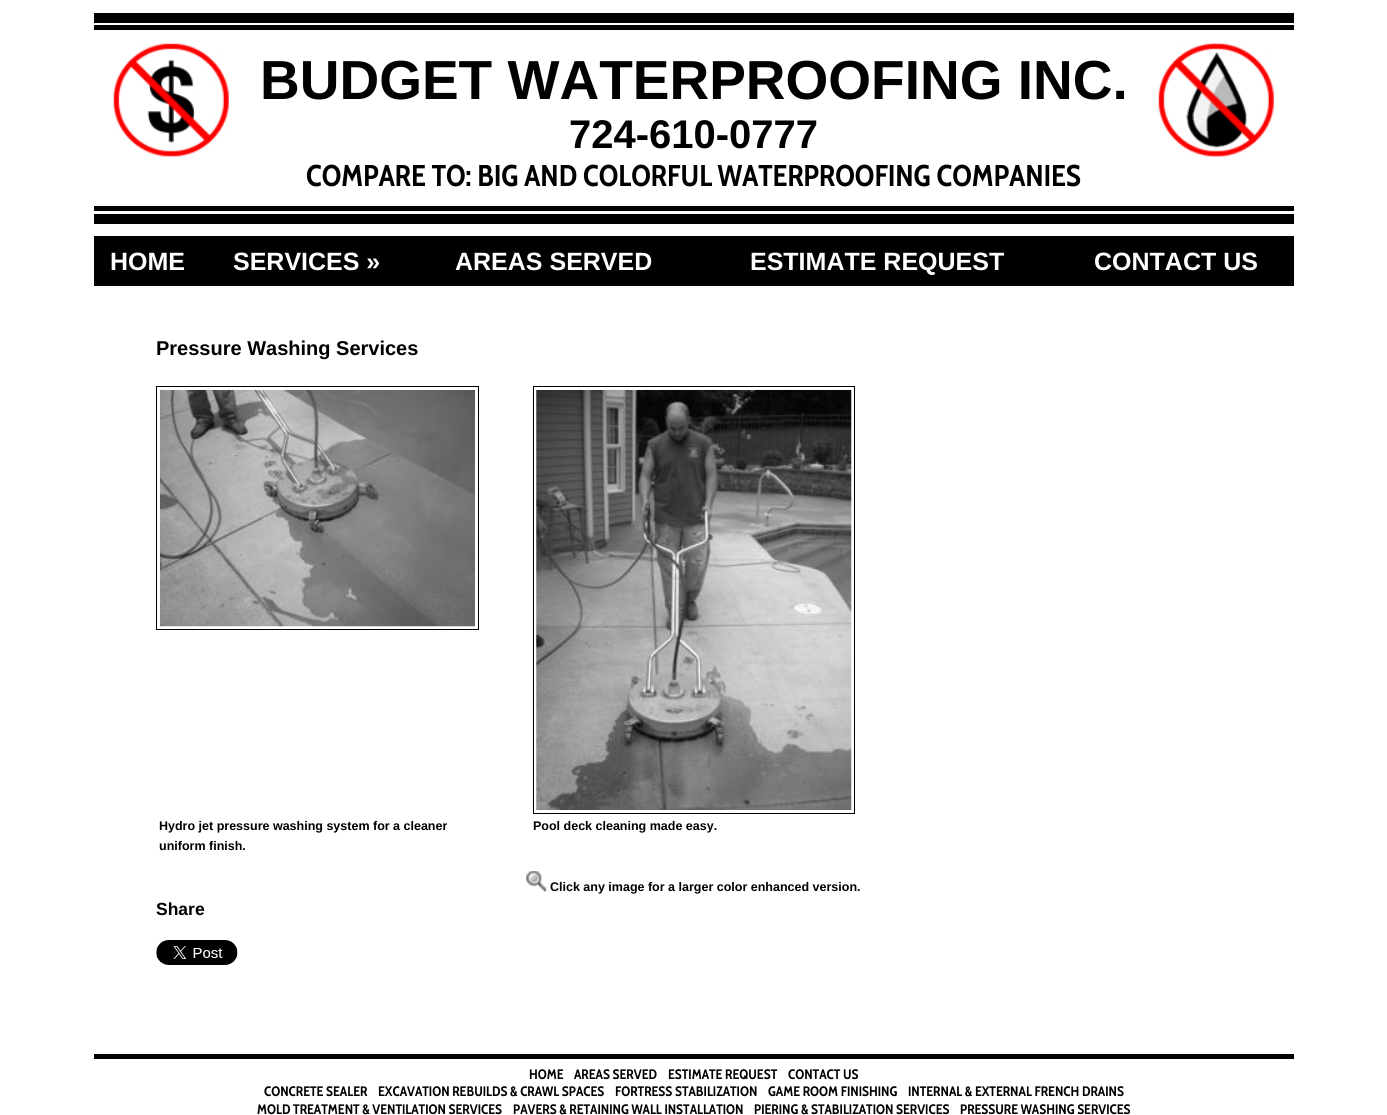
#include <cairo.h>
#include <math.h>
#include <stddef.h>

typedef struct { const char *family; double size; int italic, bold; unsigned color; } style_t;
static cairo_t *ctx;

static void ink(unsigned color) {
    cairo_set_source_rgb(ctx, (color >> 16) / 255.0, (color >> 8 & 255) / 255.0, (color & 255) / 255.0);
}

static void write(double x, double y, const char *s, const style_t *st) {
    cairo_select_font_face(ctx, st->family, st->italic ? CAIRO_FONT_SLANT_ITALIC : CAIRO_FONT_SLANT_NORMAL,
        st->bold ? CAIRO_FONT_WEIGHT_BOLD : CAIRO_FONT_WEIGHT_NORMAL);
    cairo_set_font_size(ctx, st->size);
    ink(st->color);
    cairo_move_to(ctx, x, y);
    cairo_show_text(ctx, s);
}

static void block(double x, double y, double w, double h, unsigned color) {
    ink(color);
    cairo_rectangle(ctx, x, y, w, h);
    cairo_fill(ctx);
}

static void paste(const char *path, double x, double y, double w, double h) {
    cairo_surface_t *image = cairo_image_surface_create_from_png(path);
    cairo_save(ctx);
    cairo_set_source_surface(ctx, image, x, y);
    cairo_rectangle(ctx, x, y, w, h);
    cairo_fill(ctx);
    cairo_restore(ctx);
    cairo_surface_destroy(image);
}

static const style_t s1 = {"Liberation Sans", 55, 0, 1, 0x000000};
static const style_t s2 = {"Liberation Sans", 40, 0, 1, 0x000000};
static const style_t s3 = {"Cabin Condensed", 30, 0, 1, 0x000000};
static const style_t s4 = {"Liberation Sans", 25, 0, 1, 0xffffff};
static const style_t s5 = {"Liberation Sans", 20, 0, 1, 0x000000};
static const style_t s6 = {"Liberation Sans", 12.5, 0, 1, 0x000000};
static const style_t s7 = {"Liberation Sans", 17.5, 0, 1, 0x000000};
static const style_t s8 = {"Cabin Condensed", 13.75, 0, 1, 0x000000};

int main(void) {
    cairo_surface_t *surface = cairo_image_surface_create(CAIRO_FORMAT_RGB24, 1387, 1115);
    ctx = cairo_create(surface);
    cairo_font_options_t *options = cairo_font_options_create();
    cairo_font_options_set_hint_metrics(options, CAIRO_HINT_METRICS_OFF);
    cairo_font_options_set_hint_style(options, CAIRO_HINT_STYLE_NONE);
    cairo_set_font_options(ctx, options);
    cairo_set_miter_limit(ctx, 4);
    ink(0xffffff);
    cairo_paint(ctx);
    block(94, 13, 1200, 10, 0x000000);
    block(94, 25, 1200, 5, 0x000000);
    paste("pic1.png", 113, 43, 116, 114);
    write(260, 99, "BUDGET WATERPROOFING INC.", &s1);
    write(569, 148, "724-610-0777", &s2);
    write(306, 186, "COMPARE TO: BIG AND COLORFUL WATERPROOFING COMPANIES", &s3);
    paste("pic2.png", 1158, 43, 116, 114);
    block(94, 206, 1200, 5, 0x000000);
    block(94, 214, 1200, 10, 0x000000);
    block(94, 236, 1200, 50, 0x000000);
    write(110, 270, "HOME", &s4);
    write(233, 270, "SERVICES »", &s4);
    write(455, 270, "AREAS SERVED", &s4);
    write(750, 270, "ESTIMATE REQUEST", &s4);
    write(1094, 270, "CONTACT US", &s4);
    write(156, 355, "Pressure Washing Services", &s5);
    cairo_rectangle(ctx, 156.5, 386.5, 322, 243);
    cairo_set_line_width(ctx, 1);
    cairo_stroke(ctx);
    paste("pic3.png", 160, 390, 315, 237);
    cairo_rectangle(ctx, 533.5, 386.5, 321, 427);
    cairo_stroke(ctx);
    paste("pic4.png", 536, 390, 316, 420);
    write(159, 830, "Hydro jet pressure washing system for a cleaner", &s6);
    write(159, 850, "uniform finish.", &s6);
    write(533, 830, "Pool deck cleaning made easy.", &s6);
    paste("pic5.png", 526, 871, 21, 21);
    write(550, 891, "Click any image for a larger color enhanced version.", &s6);
    write(156, 915, "Share", &s7);
    paste("pic6.png", 156, 940, 82, 25);
    block(94, 1054, 1200, 5, 0x000000);
    write(529, 1079, "HOME", &s8);
    write(574, 1079, "AREAS SERVED", &s8);
    write(668, 1079, "ESTIMATE REQUEST", &s8);
    write(788, 1079, "CONTACT US", &s8);
    write(264, 1096, "CONCRETE SEALER", &s8);
    write(378, 1096, "EXCAVATION REBUILDS & CRAWL SPACES", &s8);
    write(615, 1096, "FORTRESS STABILIZATION", &s8);
    write(768, 1096, "GAME ROOM FINISHING", &s8);
    write(908, 1096, "INTERNAL & EXTERNAL FRENCH DRAINS", &s8);
    write(257, 1114, "MOLD TREATMENT & VENTILATION SERVICES", &s8);
    write(513, 1114, "PAVERS & RETAINING WALL INSTALLATION", &s8);
    write(754, 1114, "PIERING & STABILIZATION SERVICES", &s8);
    write(960, 1114, "PRESSURE WASHING SERVICES", &s8);
    cairo_surface_write_to_png(surface, "screenshot.png");
    cairo_font_options_destroy(options);
    cairo_destroy(ctx);
    cairo_surface_destroy(surface);
    return 0;
}
